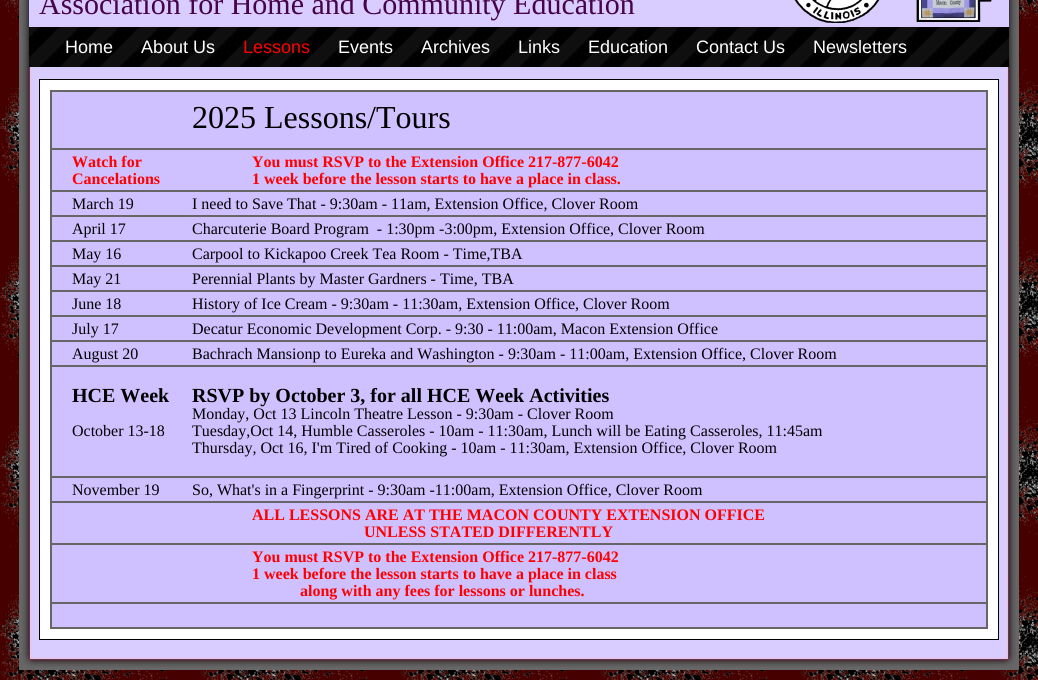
#include <cairo.h>
#include <math.h>
#include <stddef.h>

typedef struct { const char *family; double size; int italic, bold; unsigned color; } style_t;
static cairo_t *ctx;

static void ink(unsigned color) {
    cairo_set_source_rgb(ctx, (color >> 16) / 255.0, (color >> 8 & 255) / 255.0, (color & 255) / 255.0);
}

static void write(double x, double y, const char *s, const style_t *st) {
    cairo_select_font_face(ctx, st->family, st->italic ? CAIRO_FONT_SLANT_ITALIC : CAIRO_FONT_SLANT_NORMAL,
        st->bold ? CAIRO_FONT_WEIGHT_BOLD : CAIRO_FONT_WEIGHT_NORMAL);
    cairo_set_font_size(ctx, st->size);
    ink(st->color);
    cairo_move_to(ctx, x, y);
    cairo_show_text(ctx, s);
}

static void block(double x, double y, double w, double h, unsigned color) {
    ink(color);
    cairo_rectangle(ctx, x, y, w, h);
    cairo_fill(ctx);
}

static void paste(const char *path, double x, double y, double w, double h) {
    cairo_surface_t *image = cairo_image_surface_create_from_png(path);
    cairo_save(ctx);
    cairo_set_source_surface(ctx, image, x, y);
    cairo_rectangle(ctx, x, y, w, h);
    cairo_fill(ctx);
    cairo_restore(ctx);
    cairo_surface_destroy(image);
}

static const style_t s1 = {"Liberation Serif", 30, 0, 0, 0x470347};
static const style_t s2 = {"Liberation Sans", 18, 0, 0, 0xffffff};
static const style_t s3 = {"Liberation Sans", 18, 0, 0, 0xff0000};
static const style_t s4 = {"Liberation Serif", 32, 0, 0, 0x000000};
static const style_t s5 = {"Liberation Serif", 16, 0, 1, 0xff0000};
static const style_t s6 = {"Liberation Serif", 16, 0, 0, 0x000000};
static const style_t s7 = {"Liberation Serif", 20, 0, 1, 0x000000};

int main(void) {
    cairo_surface_t *surface = cairo_image_surface_create(CAIRO_FORMAT_RGB24, 1038, 680);
    ctx = cairo_create(surface);
    cairo_font_options_t *options = cairo_font_options_create();
    cairo_font_options_set_hint_metrics(options, CAIRO_HINT_METRICS_OFF);
    cairo_font_options_set_hint_style(options, CAIRO_HINT_STYLE_NONE);
    cairo_set_font_options(ctx, options);
    cairo_set_miter_limit(ctx, 4);
    ink(0xffffff);
    cairo_paint(ctx);
    paste("pic1.png", 0, 0, 1038, 680);
    block(19, 0, 1000, 650, 0x666666);
    paste("pic2.png", 22, 0, 994, 27);
    write(39, 14, "Association for Home and Community Education", &s1);
    paste("pic3.png", 794, 0, 86, 23);
    paste("pic4.png", 915, 0, 78, 22);
    paste("pic5.png", 22, 27, 994, 40);
    write(65, 53, "Home", &s2);
    write(141, 53, "About Us", &s2);
    write(243, 53, "Lessons", &s3);
    write(338, 53, "Events", &s2);
    write(421, 53, "Archives", &s2);
    write(518, 53, "Links", &s2);
    write(588, 53, "Education", &s2);
    write(696, 53, "Contact Us", &s2);
    write(813, 53, "Newsletters", &s2);
    paste("pic6.png", 22, 67, 994, 583);
    cairo_rectangle(ctx, 39.5, 79.5, 959, 560);
    cairo_fill_preserve(ctx);
    ink(0x000000);
    cairo_set_line_width(ctx, 1);
    cairo_stroke(ctx);
    block(50, 90, 938, 2, 0x666666);
    block(986, 90, 2, 539, 0x666666);
    block(50, 627, 938, 2, 0x666666);
    block(50, 90, 2, 539, 0x666666);
    block(52, 92, 934, 56, 0xcfc1ff);
    block(50, 148, 938, 2, 0x666666);
    write(192, 128, "2025 Lessons/Tours", &s4);
    block(52, 150, 934, 40, 0xcfc1ff);
    write(72, 167, "Watch for", &s5);
    write(72, 184, "Cancelations", &s5);
    block(50, 190, 938, 2, 0x666666);
    write(252, 167, "You must RSVP to the Extension Office 217-877-6042", &s5);
    write(252, 184, "1 week before the lesson starts to have a place in class.", &s5);
    block(52, 192, 934, 23, 0xcfc1ff);
    write(72, 209, "March 19", &s6);
    block(50, 215, 938, 2, 0x666666);
    write(192, 209, "I need to Save That - 9:30am - 11am, Extension Office, Clover Room", &s6);
    block(52, 217, 934, 23, 0xcfc1ff);
    write(72, 234, "April 17", &s6);
    block(50, 240, 938, 2, 0x666666);
    write(192, 234, "Charcuterie Board Program  - 1:30pm -3:00pm, Extension Office, Clover Room", &s6);
    block(52, 242, 934, 23, 0xcfc1ff);
    write(72, 259, "May 16", &s6);
    block(50, 265, 938, 2, 0x666666);
    write(192, 259, "Carpool to Kickapoo Creek Tea Room - Time,TBA", &s6);
    block(52, 267, 934, 23, 0xcfc1ff);
    write(72, 284, "May 21", &s6);
    block(50, 290, 938, 2, 0x666666);
    write(192, 284, "Perennial Plants by Master Gardners - Time, TBA", &s6);
    block(52, 292, 934, 23, 0xcfc1ff);
    write(72, 309, "June 18", &s6);
    block(50, 315, 938, 2, 0x666666);
    write(192, 309, "History of Ice Cream - 9:30am - 11:30am, Extension Office, Clover Room", &s6);
    block(52, 317, 934, 23, 0xcfc1ff);
    write(72, 334, "July 17", &s6);
    block(50, 340, 938, 2, 0x666666);
    write(192, 334, "Decatur Economic Development Corp. - 9:30 - 11:00am, Macon Extension Office", &s6);
    block(52, 342, 934, 23, 0xcfc1ff);
    write(72, 359, "August 20", &s6);
    block(50, 365, 938, 2, 0x666666);
    write(192, 359, "Bachrach Mansionp to Eureka and Washington - 9:30am - 11:00am, Extension Office, Clover Room", &s6);
    block(52, 367, 934, 109, 0xcfc1ff);
    write(72, 402, "HCE Week", &s7);
    write(72, 436, "October 13-18", &s6);
    block(50, 476, 938, 2, 0x666666);
    write(192, 402, "RSVP by October 3, for all HCE Week Activities", &s7);
    write(192, 419, "Monday, Oct 13 Lincoln Theatre Lesson - 9:30am - Clover Room", &s6);
    write(192, 436, "Tuesday,Oct 14, Humble Casseroles - 10am - 11:30am, Lunch will be Eating Casseroles, 11:45am", &s6);
    write(192, 453, "Thursday, Oct 16, I'm Tired of Cooking - 10am - 11:30am, Extension Office, Clover Room", &s6);
    block(52, 478, 934, 23, 0xcfc1ff);
    write(72, 495, "November 19", &s6);
    block(50, 501, 938, 2, 0x666666);
    write(192, 495, "So, What's in a Fingerprint - 9:30am -11:00am, Extension Office, Clover Room", &s6);
    block(52, 503, 934, 40, 0xcfc1ff);
    block(50, 543, 938, 2, 0x666666);
    write(252, 520, "ALL LESSONS ARE AT THE MACON COUNTY EXTENSION OFFICE", &s5);
    write(364, 537, "UNLESS STATED DIFFERENTLY", &s5);
    block(52, 545, 934, 57, 0xcfc1ff);
    block(50, 602, 938, 2, 0x666666);
    write(252, 562, "You must RSVP to the Extension Office 217-877-6042", &s5);
    write(252, 579, "1 week before the lesson starts to have a place in class", &s5);
    write(300, 596, "along with any fees for lessons or lunches.", &s5);
    block(52, 604, 934, 23, 0xcfc1ff);
    paste("pic7.png", 19, 650, 1000, 20);
    cairo_surface_write_to_png(surface, "screenshot.png");
    cairo_font_options_destroy(options);
    cairo_destroy(ctx);
    cairo_surface_destroy(surface);
    return 0;
}
